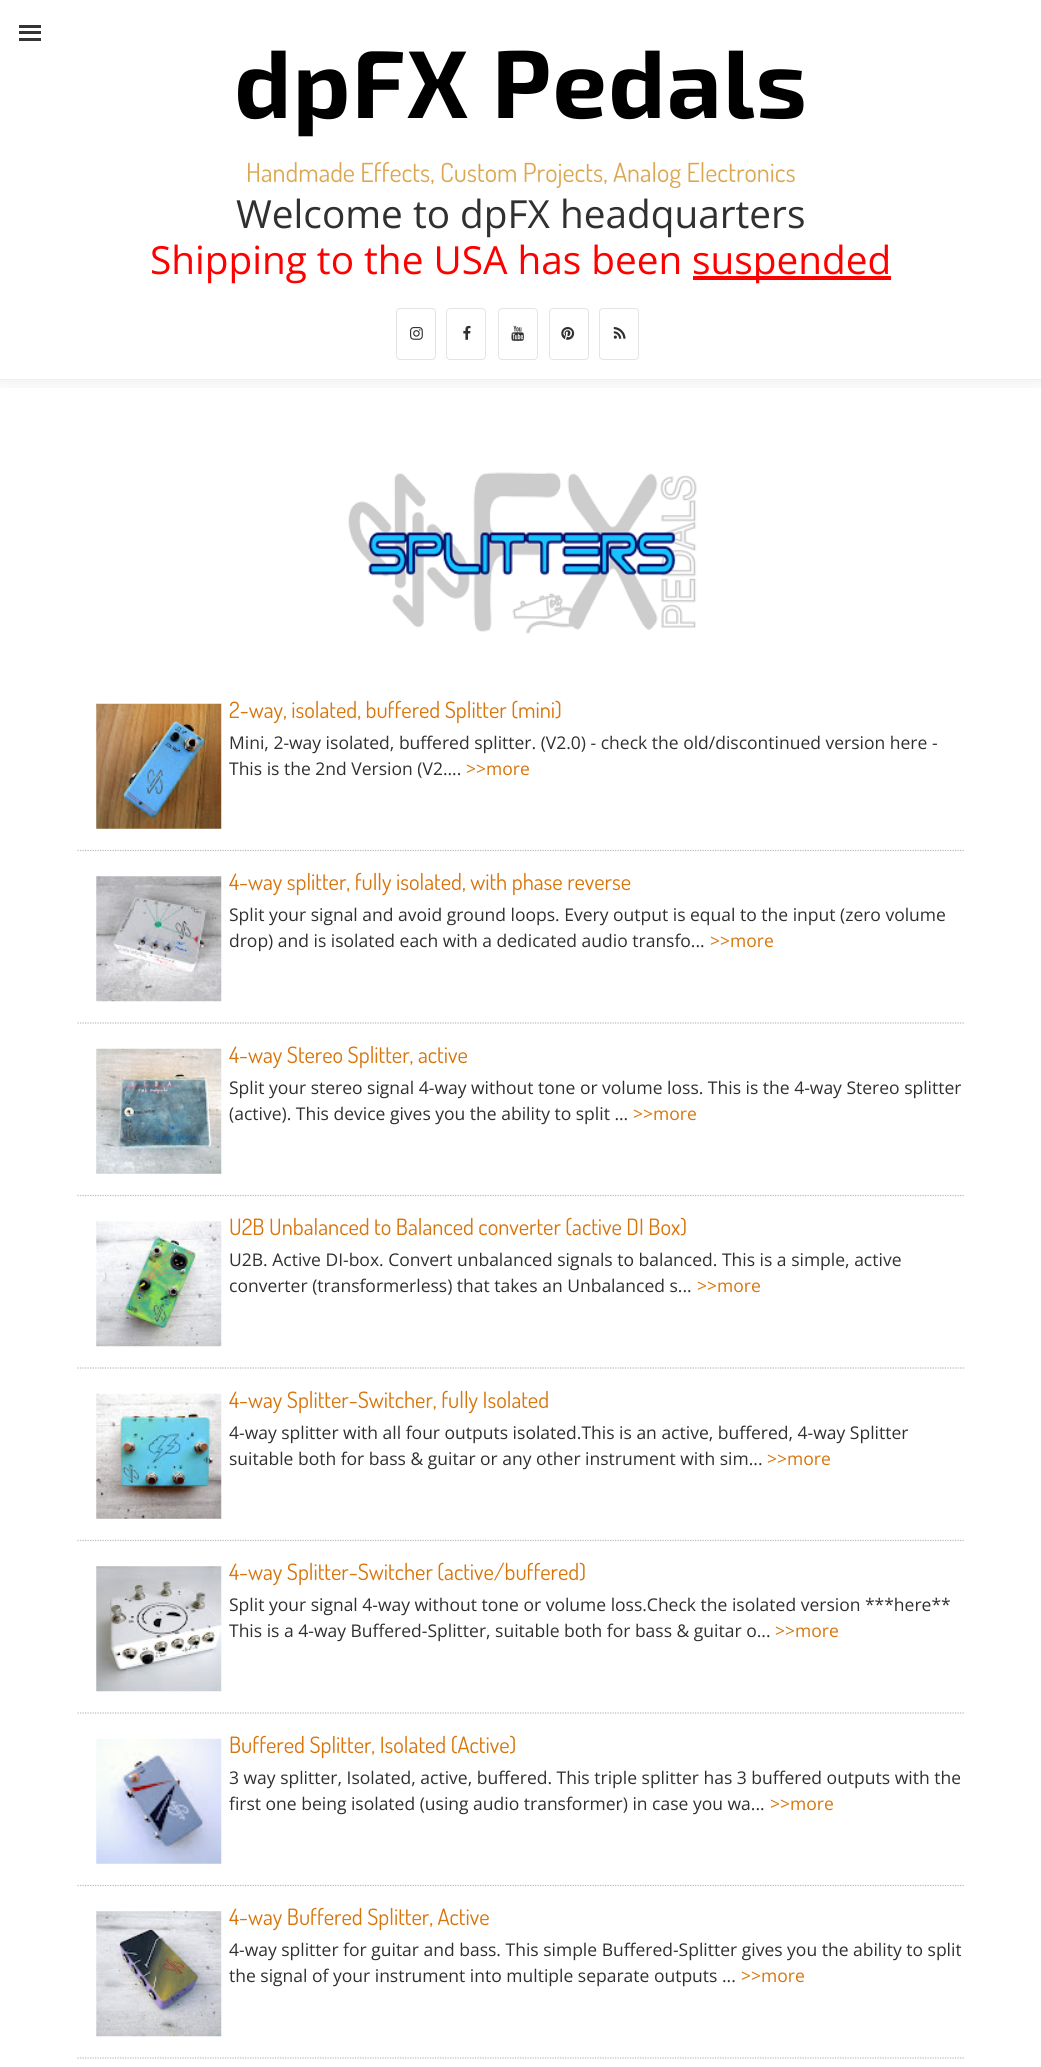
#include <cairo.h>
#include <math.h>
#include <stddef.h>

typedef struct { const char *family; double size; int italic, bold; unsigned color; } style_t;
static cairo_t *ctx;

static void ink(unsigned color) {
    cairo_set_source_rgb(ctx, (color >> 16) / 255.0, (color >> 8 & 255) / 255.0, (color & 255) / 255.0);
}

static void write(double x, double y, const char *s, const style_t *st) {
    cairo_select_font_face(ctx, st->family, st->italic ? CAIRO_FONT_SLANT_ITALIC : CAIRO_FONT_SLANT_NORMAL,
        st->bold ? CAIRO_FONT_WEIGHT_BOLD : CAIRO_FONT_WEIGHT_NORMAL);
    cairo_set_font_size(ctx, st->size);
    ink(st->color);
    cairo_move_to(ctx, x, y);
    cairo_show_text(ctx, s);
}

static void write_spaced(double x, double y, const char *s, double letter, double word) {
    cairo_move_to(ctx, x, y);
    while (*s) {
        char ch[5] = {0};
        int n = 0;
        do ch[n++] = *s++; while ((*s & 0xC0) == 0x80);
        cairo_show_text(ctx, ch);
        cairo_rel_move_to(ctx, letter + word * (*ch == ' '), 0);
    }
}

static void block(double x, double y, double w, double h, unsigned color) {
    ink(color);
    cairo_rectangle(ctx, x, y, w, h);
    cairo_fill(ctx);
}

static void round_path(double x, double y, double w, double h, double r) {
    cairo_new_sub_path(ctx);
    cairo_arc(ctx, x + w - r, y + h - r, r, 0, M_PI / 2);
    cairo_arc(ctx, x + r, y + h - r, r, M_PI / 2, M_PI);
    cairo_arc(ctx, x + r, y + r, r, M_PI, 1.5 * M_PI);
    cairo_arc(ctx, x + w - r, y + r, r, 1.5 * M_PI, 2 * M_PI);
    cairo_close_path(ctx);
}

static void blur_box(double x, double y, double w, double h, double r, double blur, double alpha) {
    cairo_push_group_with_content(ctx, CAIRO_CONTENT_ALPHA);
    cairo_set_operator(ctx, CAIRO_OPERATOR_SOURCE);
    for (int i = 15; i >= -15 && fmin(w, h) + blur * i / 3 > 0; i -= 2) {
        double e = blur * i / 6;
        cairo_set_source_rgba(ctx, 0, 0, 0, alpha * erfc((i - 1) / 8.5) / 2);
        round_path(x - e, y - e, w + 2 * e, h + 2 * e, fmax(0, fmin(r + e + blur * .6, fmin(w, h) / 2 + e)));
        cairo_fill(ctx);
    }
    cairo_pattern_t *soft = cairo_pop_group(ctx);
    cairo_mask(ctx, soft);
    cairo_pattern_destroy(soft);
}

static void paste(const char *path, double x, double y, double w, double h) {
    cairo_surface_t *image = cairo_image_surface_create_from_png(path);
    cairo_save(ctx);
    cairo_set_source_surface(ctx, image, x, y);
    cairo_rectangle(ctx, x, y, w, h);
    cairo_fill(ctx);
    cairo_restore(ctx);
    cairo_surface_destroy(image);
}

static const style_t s1 = {"Dosis", 26.25, 0, 0, 0xdca752};
static const style_t s2 = {"Open Sans", 38.75, 0, 0, 0x303030};
static const style_t s3 = {"Open Sans", 38.75, 0, 0, 0xff0000};
static const style_t s4 = {"Dosis", 22.5, 0, 0, 0xd8740a};
static const style_t s5 = {"Open Sans", 17.5, 0, 0, 0x303030};
static const style_t s6 = {"Open Sans", 17.5, 0, 0, 0xd8740a};

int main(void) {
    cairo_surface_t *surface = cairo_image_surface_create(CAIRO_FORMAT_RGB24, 1041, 2067);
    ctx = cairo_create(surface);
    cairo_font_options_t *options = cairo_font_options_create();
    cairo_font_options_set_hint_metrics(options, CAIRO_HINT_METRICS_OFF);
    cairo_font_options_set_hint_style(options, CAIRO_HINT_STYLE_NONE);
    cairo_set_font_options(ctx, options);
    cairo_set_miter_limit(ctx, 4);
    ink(0xffffff);
    cairo_paint(ctx);
    cairo_save(ctx);
    cairo_rectangle(ctx, 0, 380, 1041, 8);
    cairo_clip(ctx);
    ink(0x000000);
    blur_box(0, -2, 1041, 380, 0, 12, 0.1);
    cairo_restore(ctx);
    block(0, 379, 1041, 1, 0xeeeeee);
    block(19, 25, 22, 3, 0x343434);
    block(19, 31, 22, 3, 0x343434);
    block(19, 38, 22, 3, 0x343434);
    cairo_select_font_face(ctx, "Exo 2", CAIRO_FONT_SLANT_NORMAL, CAIRO_FONT_WEIGHT_BOLD);
    cairo_set_font_size(ctx, 96.25);
    ink(0x000000);
    write_spaced(234, 118, "dpFX Pedals", 1.25, 0);
    write(246, 182, "Handmade Effects, Custom Projects, Analog Electronics", &s1);
    write(236, 228, "Welcome to dpFX headquarters", &s2);
    write(150, 274, "Shipping to the USA has been", &s3);
    block(693, 276, 198, 4, 0xff0000);
    write(692, 274, "suspended", &s3);
    round_path(396.5, 308.5, 39, 51, 3.5);
    ink(0xe4e4e4);
    cairo_set_line_width(ctx, 1);
    cairo_stroke(ctx);
    paste("pic1.png", 410, 327, 13, 13);
    round_path(446.5, 308.5, 39, 51, 3.5);
    cairo_stroke(ctx);
    paste("pic2.png", 463, 325, 8, 15);
    round_path(498.5, 308.5, 39, 51, 3.5);
    cairo_stroke(ctx);
    paste("pic3.png", 511, 325, 13, 16);
    round_path(549.5, 308.5, 39, 51, 3.5);
    cairo_stroke(ctx);
    paste("pic4.png", 561, 327, 14, 13);
    round_path(599.5, 308.5, 39, 51, 3.5);
    cairo_stroke(ctx);
    paste("pic5.png", 613, 327, 13, 12);
    paste("pic6.png", 348, 472, 349, 162);
    paste("pic7.png", 96, 703, 126, 126);
    write(229, 718, "2-way, isolated, buffered Splitter (mini)", &s4);
    write(229, 749, "Mini, 2-way isolated, buffered splitter. (V2.0) - check the old/discontinued version here -", &s5);
    write(229, 775, "This is the 2nd Version (V2....", &s5);
    write(466, 775, ">>more", &s6);
    cairo_new_path(ctx);
    cairo_move_to(ctx, 77.5, 850.5);
    cairo_line_to(ctx, 965, 850.5);
    ink(0xbbbbbb);
    cairo_set_line_width(ctx, 1.2);
    cairo_set_dash(ctx, (double[]){1.25, 1.25}, 2, 0);
    cairo_stroke(ctx);
    paste("pic8.png", 96, 876, 126, 126);
    write(229, 890, "4-way splitter, fully isolated, with phase reverse", &s4);
    write(229, 921, "Split your signal and avoid ground loops. Every output is equal to the input (zero volume", &s5);
    write(229, 947, "drop) and is isolated each with a dedicated audio transfo...", &s5);
    write(710, 947, ">>more", &s6);
    cairo_new_path(ctx);
    cairo_move_to(ctx, 77.5, 1023);
    cairo_line_to(ctx, 965, 1023);
    ink(0xbbbbbb);
    cairo_stroke(ctx);
    paste("pic9.png", 96, 1048, 126, 126);
    write(229, 1063, "4-way Stereo Splitter, active", &s4);
    write(229, 1094, "Split your stereo signal 4-way without tone or volume loss. This is the 4-way Stereo splitter", &s5);
    write(229, 1120, "(active). This device gives you the ability to split ...", &s5);
    write(633, 1120, ">>more", &s6);
    cairo_new_path(ctx);
    cairo_move_to(ctx, 77.5, 1195.5);
    cairo_line_to(ctx, 965, 1195.5);
    ink(0xbbbbbb);
    cairo_stroke(ctx);
    paste("pic10.png", 96, 1221, 126, 126);
    write(229, 1235, "U2B Unbalanced to Balanced converter (active DI Box)", &s4);
    write(229, 1266, "U2B. Active DI-box. Convert unbalanced signals to balanced. This is a simple, active", &s5);
    write(229, 1292, "converter (transformerless) that takes an Unbalanced s...", &s5);
    write(697, 1292, ">>more", &s6);
    cairo_new_path(ctx);
    cairo_move_to(ctx, 77.5, 1368);
    cairo_line_to(ctx, 965, 1368);
    ink(0xbbbbbb);
    cairo_stroke(ctx);
    paste("pic11.png", 96, 1393, 126, 126);
    write(229, 1408, "4-way Splitter-Switcher, fully Isolated", &s4);
    write(229, 1439, "4-way splitter with all four outputs isolated.This is an active, buffered, 4-way Splitter", &s5);
    write(229, 1465, "suitable both for bass & guitar or any other instrument with sim...", &s5);
    write(767, 1465, ">>more", &s6);
    cairo_new_path(ctx);
    cairo_move_to(ctx, 77.5, 1540.5);
    cairo_line_to(ctx, 965, 1540.5);
    ink(0xbbbbbb);
    cairo_stroke(ctx);
    paste("pic12.png", 96, 1566, 126, 126);
    write(229, 1580, "4-way Splitter-Switcher (active/buffered)", &s4);
    write(229, 1611, "Split your signal 4-way without tone or volume loss.Check the isolated version ***here**", &s5);
    write(229, 1637, "This is a 4-way Buffered-Splitter, suitable both for bass & guitar o...", &s5);
    write(775, 1637, ">>more", &s6);
    cairo_new_path(ctx);
    cairo_move_to(ctx, 77.5, 1713);
    cairo_line_to(ctx, 965, 1713);
    ink(0xbbbbbb);
    cairo_stroke(ctx);
    paste("pic13.png", 96, 1738, 126, 126);
    write(229, 1753, "Buffered Splitter, Isolated (Active)", &s4);
    write(229, 1784, "3 way splitter, Isolated, active, buffered. This triple splitter has 3 buffered outputs with the", &s5);
    write(229, 1810, "first one being isolated (using audio transformer) in case you wa...", &s5);
    write(770, 1810, ">>more", &s6);
    cairo_new_path(ctx);
    cairo_move_to(ctx, 77.5, 1885.5);
    cairo_line_to(ctx, 965, 1885.5);
    ink(0xbbbbbb);
    cairo_stroke(ctx);
    paste("pic14.png", 96, 1911, 126, 126);
    write(229, 1925, "4-way Buffered Splitter, Active", &s4);
    write(229, 1956, "4-way splitter for guitar and bass. This simple Buffered-Splitter gives you the ability to split", &s5);
    write(229, 1982, "the signal of your instrument into multiple separate outputs ...", &s5);
    write(741, 1982, ">>more", &s6);
    cairo_new_path(ctx);
    cairo_move_to(ctx, 77.5, 2058);
    cairo_line_to(ctx, 965, 2058);
    ink(0xbbbbbb);
    cairo_stroke(ctx);
    cairo_surface_write_to_png(surface, "screenshot.png");
    cairo_font_options_destroy(options);
    cairo_destroy(ctx);
    cairo_surface_destroy(surface);
    return 0;
}
